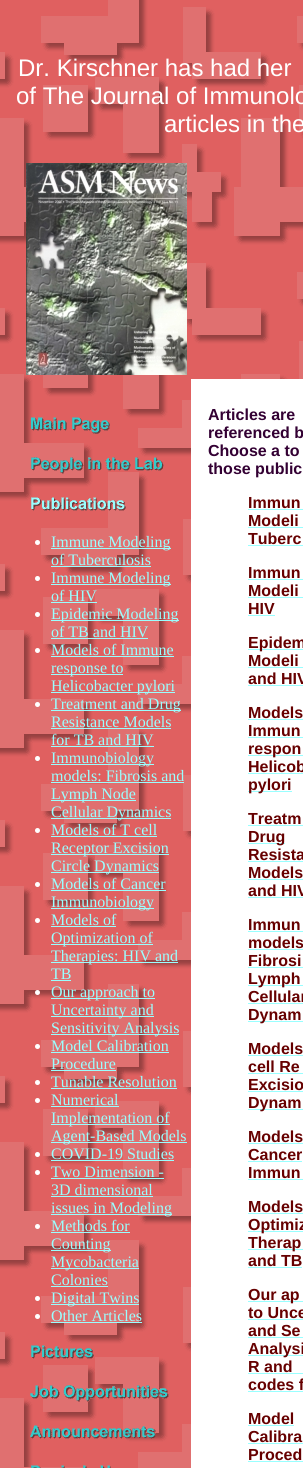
#include <cairo.h>
#include <math.h>
#include <stddef.h>

typedef struct { const char *family; double size; int italic, bold; unsigned color; } style_t;
static cairo_t *ctx;

static void ink(unsigned color) {
    cairo_set_source_rgb(ctx, (color >> 16) / 255.0, (color >> 8 & 255) / 255.0, (color & 255) / 255.0);
}

static void write(double x, double y, const char *s, const style_t *st) {
    cairo_select_font_face(ctx, st->family, st->italic ? CAIRO_FONT_SLANT_ITALIC : CAIRO_FONT_SLANT_NORMAL,
        st->bold ? CAIRO_FONT_WEIGHT_BOLD : CAIRO_FONT_WEIGHT_NORMAL);
    cairo_set_font_size(ctx, st->size);
    ink(st->color);
    cairo_move_to(ctx, x, y);
    cairo_show_text(ctx, s);
}

static void block(double x, double y, double w, double h, unsigned color) {
    ink(color);
    cairo_rectangle(ctx, x, y, w, h);
    cairo_fill(ctx);
}

static void paste(const char *path, double x, double y, double w, double h) {
    cairo_surface_t *image = cairo_image_surface_create_from_png(path);
    cairo_save(ctx);
    cairo_set_source_surface(ctx, image, x, y);
    cairo_rectangle(ctx, x, y, w, h);
    cairo_fill(ctx);
    cairo_restore(ctx);
    cairo_surface_destroy(image);
}

static const style_t s1 = {"Liberation Sans", 24, 0, 0, 0xffffff};
static const style_t s2 = {"Liberation Serif", 16, 0, 0, 0x99ffff};
static const style_t s3 = {"Liberation Sans", 16, 0, 1, 0x330033};
static const style_t s4 = {"Liberation Sans", 16, 0, 1, 0x660000};

int main(void) {
    cairo_surface_t *surface = cairo_image_surface_create(CAIRO_FORMAT_RGB24, 303, 1468);
    ctx = cairo_create(surface);
    cairo_font_options_t *options = cairo_font_options_create();
    cairo_font_options_set_hint_metrics(options, CAIRO_HINT_METRICS_OFF);
    cairo_font_options_set_hint_style(options, CAIRO_HINT_STYLE_NONE);
    cairo_set_font_options(ctx, options);
    cairo_set_miter_limit(ctx, 4);
    ink(0xffffff);
    cairo_paint(ctx);
    paste("pic1.png", 0, 0, 303, 1468);
    write(18, 76, "Dr. Kirschner has had her", &s1);
    write(16, 104, "of The Journal of Immunolo", &s1);
    write(164, 132, "articles in the", &s1);
    paste("pic2.png", 26, 163, 161, 212);
    paste("pic3.png", 31, 417, 79, 17);
    paste("pic4.png", 31, 457, 133, 17);
    paste("pic5.png", 31, 497, 95, 14);
    cairo_arc(ctx, 37.5, 542.5, 2.5, 0, 2 * M_PI);
    cairo_fill(ctx);
    block(51, 548, 120, 1, 0x99ffff);
    write(51, 547, "Immune Modeling", &s2);
    write(51, 565, "of Tuberculosis", &s2);
    block(51, 566, 100, 1, 0x99ffff);
    ink(0xffffff);
    cairo_new_path(ctx);
    cairo_arc(ctx, 37.5, 578.5, 2.5, 0, 2 * M_PI);
    cairo_fill(ctx);
    block(51, 584, 120, 1, 0x99ffff);
    write(51, 583, "Immune Modeling", &s2);
    write(51, 601, "of HIV", &s2);
    block(51, 602, 46, 1, 0x99ffff);
    ink(0xffffff);
    cairo_new_path(ctx);
    cairo_arc(ctx, 37.5, 614.5, 2.5, 0, 2 * M_PI);
    cairo_fill(ctx);
    block(51, 620, 128, 1, 0x99ffff);
    write(51, 619, "Epidemic Modeling", &s2);
    write(51, 637, "of TB and HIV", &s2);
    block(51, 638, 97, 1, 0x99ffff);
    ink(0xffffff);
    cairo_new_path(ctx);
    cairo_arc(ctx, 37.5, 650.5, 2.5, 0, 2 * M_PI);
    cairo_fill(ctx);
    write(51, 655, "Models of Immune", &s2);
    block(51, 656, 123, 1, 0x99ffff);
    block(51, 674, 72, 1, 0x99ffff);
    write(51, 673, "response to", &s2);
    block(51, 692, 124, 1, 0x99ffff);
    write(51, 691, "Helicobacter pylori", &s2);
    ink(0xffffff);
    cairo_new_path(ctx);
    cairo_arc(ctx, 37.5, 704.5, 2.5, 0, 2 * M_PI);
    cairo_fill(ctx);
    block(51, 710, 130, 1, 0x99ffff);
    write(51, 709, "Treatment and Drug", &s2);
    write(51, 727, "Resistance Models", &s2);
    block(51, 728, 120, 1, 0x99ffff);
    write(51, 745, "for TB and HIV", &s2);
    block(51, 746, 103, 1, 0x99ffff);
    ink(0xffffff);
    cairo_new_path(ctx);
    cairo_arc(ctx, 37.5, 758.5, 2.5, 0, 2 * M_PI);
    cairo_fill(ctx);
    block(51, 764, 103, 1, 0x99ffff);
    write(51, 763, "Immunobiology", &s2);
    write(51, 781, "models: Fibrosis and", &s2);
    block(51, 782, 133, 1, 0x99ffff);
    block(51, 800, 85, 1, 0x99ffff);
    write(51, 799, "Lymph Node", &s2);
    block(51, 818, 120, 1, 0x99ffff);
    write(51, 817, "Cellular Dynamics", &s2);
    ink(0xffffff);
    cairo_new_path(ctx);
    cairo_arc(ctx, 37.5, 830.5, 2.5, 0, 2 * M_PI);
    cairo_fill(ctx);
    write(51, 835, "Models of T cell", &s2);
    block(51, 836, 106, 1, 0x99ffff);
    block(51, 854, 118, 1, 0x99ffff);
    write(51, 853, "Receptor Excision", &s2);
    block(51, 872, 108, 1, 0x99ffff);
    write(51, 871, "Circle Dynamics", &s2);
    ink(0xffffff);
    cairo_new_path(ctx);
    cairo_arc(ctx, 37.5, 884.5, 2.5, 0, 2 * M_PI);
    cairo_fill(ctx);
    write(51, 889, "Models of Cancer", &s2);
    block(51, 890, 115, 1, 0x99ffff);
    block(51, 908, 103, 1, 0x99ffff);
    write(51, 907, "Immunobiology", &s2);
    ink(0xffffff);
    cairo_new_path(ctx);
    cairo_arc(ctx, 37.5, 920.5, 2.5, 0, 2 * M_PI);
    cairo_fill(ctx);
    write(51, 925, "Models of", &s2);
    block(51, 926, 65, 1, 0x99ffff);
    block(51, 944, 102, 1, 0x99ffff);
    write(51, 943, "Optimization of", &s2);
    block(51, 962, 127, 1, 0x99ffff);
    write(51, 961, "Therapies: HIV and", &s2);
    write(51, 979, "TB", &s2);
    block(51, 980, 20, 1, 0x99ffff);
    ink(0xffffff);
    cairo_new_path(ctx);
    cairo_arc(ctx, 37.5, 992.5, 2.5, 0, 2 * M_PI);
    cairo_fill(ctx);
    block(51, 998, 104, 1, 0x99ffff);
    write(51, 997, "Our approach to", &s2);
    block(51, 1016, 103, 1, 0x99ffff);
    write(51, 1015, "Uncertainty and", &s2);
    block(51, 1034, 128, 1, 0x99ffff);
    write(51, 1033, "Sensitivity Analysis", &s2);
    ink(0xffffff);
    cairo_new_path(ctx);
    cairo_arc(ctx, 37.5, 1046.5, 2.5, 0, 2 * M_PI);
    cairo_fill(ctx);
    write(51, 1051, "Model Calibration", &s2);
    block(51, 1052, 118, 1, 0x99ffff);
    write(51, 1069, "Procedure", &s2);
    block(51, 1070, 65, 1, 0x99ffff);
    ink(0xffffff);
    cairo_new_path(ctx);
    cairo_arc(ctx, 37.5, 1082.5, 2.5, 0, 2 * M_PI);
    cairo_fill(ctx);
    write(51, 1087, "Tunable Resolution", &s2);
    block(51, 1088, 126, 1, 0x99ffff);
    ink(0xffffff);
    cairo_new_path(ctx);
    cairo_arc(ctx, 37.5, 1100.5, 2.5, 0, 2 * M_PI);
    cairo_fill(ctx);
    write(51, 1105, "Numerical", &s2);
    block(51, 1106, 68, 1, 0x99ffff);
    block(51, 1124, 119, 1, 0x99ffff);
    write(51, 1123, "Implementation of", &s2);
    block(51, 1142, 136, 1, 0x99ffff);
    write(51, 1141, "Agent-Based Models", &s2);
    ink(0xffffff);
    cairo_new_path(ctx);
    cairo_arc(ctx, 37.5, 1154.5, 2.5, 0, 2 * M_PI);
    cairo_fill(ctx);
    write(51, 1159, "COVID-19 Studies", &s2);
    block(51, 1160, 123, 1, 0x99ffff);
    ink(0xffffff);
    cairo_new_path(ctx);
    cairo_arc(ctx, 37.5, 1172.5, 2.5, 0, 2 * M_PI);
    cairo_fill(ctx);
    write(51, 1177, "Two Dimension -", &s2);
    block(51, 1178, 113, 1, 0x99ffff);
    write(51, 1195, "3D dimensional", &s2);
    block(51, 1196, 102, 1, 0x99ffff);
    block(51, 1214, 121, 1, 0x99ffff);
    write(51, 1213, "issues in Modeling", &s2);
    ink(0xffffff);
    cairo_new_path(ctx);
    cairo_arc(ctx, 37.5, 1226.5, 2.5, 0, 2 * M_PI);
    cairo_fill(ctx);
    write(51, 1231, "Methods for", &s2);
    block(51, 1232, 79, 1, 0x99ffff);
    block(51, 1250, 60, 1, 0x99ffff);
    write(51, 1249, "Counting", &s2);
    block(51, 1268, 88, 1, 0x99ffff);
    write(51, 1267, "Mycobacteria", &s2);
    write(51, 1285, "Colonies", &s2);
    block(51, 1286, 57, 1, 0x99ffff);
    ink(0xffffff);
    cairo_new_path(ctx);
    cairo_arc(ctx, 37.5, 1298.5, 2.5, 0, 2 * M_PI);
    cairo_fill(ctx);
    block(51, 1304, 88, 1, 0x99ffff);
    write(51, 1303, "Digital Twins", &s2);
    ink(0xffffff);
    cairo_new_path(ctx);
    cairo_arc(ctx, 37.5, 1316.5, 2.5, 0, 2 * M_PI);
    cairo_fill(ctx);
    write(51, 1321, "Other Articles", &s2);
    block(51, 1322, 91, 1, 0x99ffff);
    paste("pic6.png", 31, 1345, 63, 14);
    paste("pic7.png", 30, 1385, 139, 17);
    paste("pic8.png", 30, 1425, 126, 14);
    paste("pic9.png", 31, 1465, 80, 3);
    block(191, 379, 112, 24, 0xffffff);
    block(191, 403, 112, 1065, 0xffffff);
    write(208, 420, "Articles are", &s3);
    write(208, 438, "referenced b", &s3);
    write(208, 456, "Choose a to", &s3);
    write(208, 474, "those public", &s3);
    write(248, 508, "Immun", &s4);
    block(248, 509, 55, 1, 0x99ffff);
    write(248, 526, "Modeli", &s4);
    block(248, 527, 55, 1, 0x99ffff);
    write(248, 544, "Tuberc", &s4);
    block(248, 545, 55, 1, 0x99ffff);
    write(248, 578, "Immun", &s4);
    block(248, 579, 55, 1, 0x99ffff);
    write(248, 596, "Modeli", &s4);
    block(248, 597, 55, 1, 0x99ffff);
    write(248, 614, "HIV", &s4);
    block(248, 615, 27, 1, 0x99ffff);
    block(248, 649, 55, 1, 0x99ffff);
    write(248, 648, "Epidem", &s4);
    write(248, 666, "Modeli", &s4);
    block(248, 667, 55, 1, 0x99ffff);
    write(248, 684, "and HIV", &s4);
    block(248, 685, 55, 1, 0x99ffff);
    write(248, 718, "Models", &s4);
    block(248, 719, 55, 1, 0x99ffff);
    write(248, 736, "Immun", &s4);
    block(248, 737, 55, 1, 0x99ffff);
    block(248, 755, 55, 1, 0x99ffff);
    write(248, 754, "respon", &s4);
    write(248, 772, "Helicob", &s4);
    block(248, 773, 55, 1, 0x99ffff);
    block(248, 791, 44, 1, 0x99ffff);
    write(248, 790, "pylori", &s4);
    write(248, 824, "Treatm", &s4);
    block(248, 825, 55, 1, 0x99ffff);
    block(248, 843, 37, 1, 0x99ffff);
    write(248, 842, "Drug", &s4);
    write(248, 860, "Resista", &s4);
    block(248, 861, 55, 1, 0x99ffff);
    write(248, 878, "Models", &s4);
    block(248, 879, 55, 1, 0x99ffff);
    write(248, 896, "and HIV", &s4);
    block(248, 897, 55, 1, 0x99ffff);
    write(248, 930, "Immun", &s4);
    block(248, 931, 55, 1, 0x99ffff);
    write(248, 948, "models", &s4);
    block(248, 949, 55, 1, 0x99ffff);
    write(248, 966, "Fibrosi", &s4);
    block(248, 967, 55, 1, 0x99ffff);
    block(248, 985, 55, 1, 0x99ffff);
    write(248, 984, "Lymph", &s4);
    write(248, 1002, "Cellular", &s4);
    block(248, 1003, 55, 1, 0x99ffff);
    block(248, 1021, 55, 1, 0x99ffff);
    write(248, 1020, "Dynam", &s4);
    write(248, 1054, "Models", &s4);
    block(248, 1055, 55, 1, 0x99ffff);
    write(248, 1072, "cell Re", &s4);
    block(248, 1073, 55, 1, 0x99ffff);
    write(248, 1090, "Excisio", &s4);
    block(248, 1091, 55, 1, 0x99ffff);
    block(248, 1109, 55, 1, 0x99ffff);
    write(248, 1108, "Dynam", &s4);
    write(248, 1142, "Models", &s4);
    block(248, 1143, 55, 1, 0x99ffff);
    write(248, 1160, "Cancer", &s4);
    block(248, 1161, 54, 1, 0x99ffff);
    write(248, 1178, "Immun", &s4);
    block(248, 1179, 55, 1, 0x99ffff);
    write(248, 1212, "Models", &s4);
    block(248, 1213, 55, 1, 0x99ffff);
    block(248, 1231, 55, 1, 0x99ffff);
    write(248, 1230, "Optimiz", &s4);
    block(248, 1249, 55, 1, 0x99ffff);
    write(248, 1248, "Therap", &s4);
    write(248, 1266, "and TB", &s4);
    block(248, 1267, 54, 1, 0x99ffff);
    block(248, 1301, 55, 1, 0x99ffff);
    write(248, 1300, "Our ap", &s4);
    write(248, 1318, "to Unce", &s4);
    block(248, 1319, 55, 1, 0x99ffff);
    write(248, 1336, "and Se", &s4);
    block(248, 1337, 55, 1, 0x99ffff);
    block(248, 1355, 55, 1, 0x99ffff);
    write(248, 1354, "Analysi", &s4);
    write(248, 1372, "R and", &s4);
    block(248, 1373, 55, 1, 0x99ffff);
    write(248, 1390, "codes f", &s4);
    block(248, 1391, 55, 1, 0x99ffff);
    write(248, 1424, "Model", &s4);
    block(248, 1425, 46, 1, 0x99ffff);
    write(248, 1442, "Calibra", &s4);
    block(248, 1443, 55, 1, 0x99ffff);
    write(248, 1460, "Proced", &s4);
    block(248, 1461, 55, 1, 0x99ffff);
    cairo_surface_write_to_png(surface, "screenshot.png");
    cairo_font_options_destroy(options);
    cairo_destroy(ctx);
    cairo_surface_destroy(surface);
    return 0;
}
